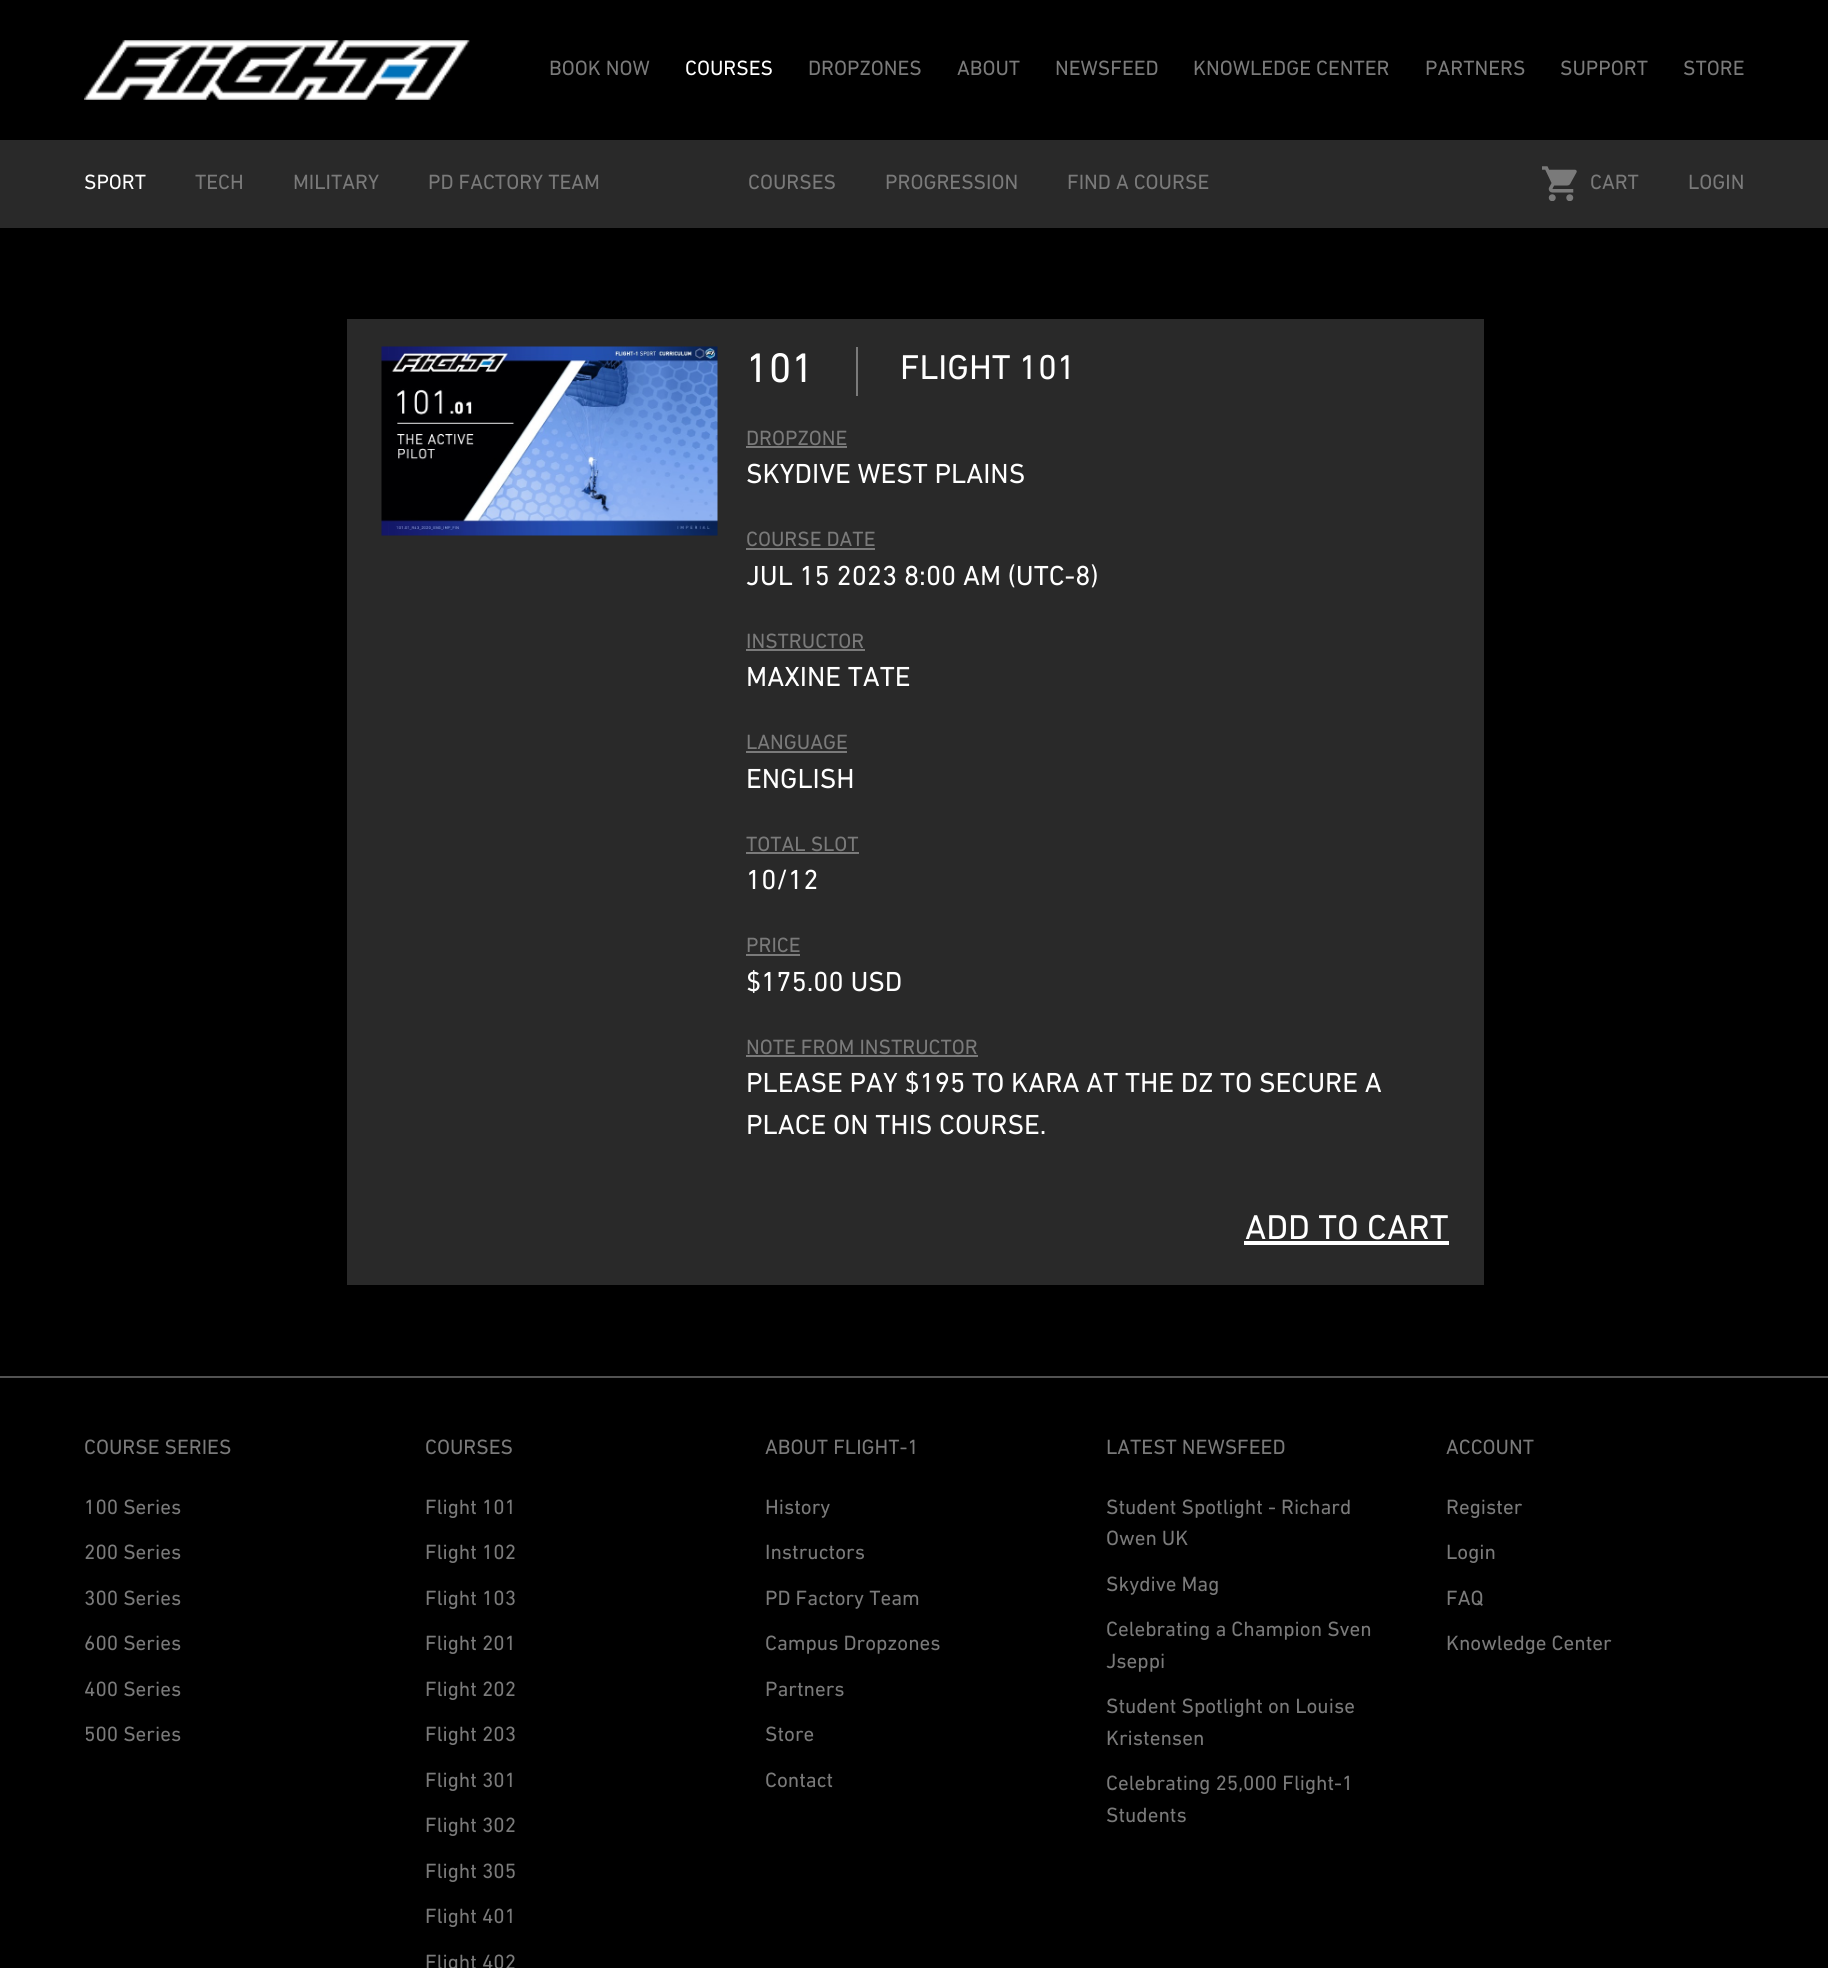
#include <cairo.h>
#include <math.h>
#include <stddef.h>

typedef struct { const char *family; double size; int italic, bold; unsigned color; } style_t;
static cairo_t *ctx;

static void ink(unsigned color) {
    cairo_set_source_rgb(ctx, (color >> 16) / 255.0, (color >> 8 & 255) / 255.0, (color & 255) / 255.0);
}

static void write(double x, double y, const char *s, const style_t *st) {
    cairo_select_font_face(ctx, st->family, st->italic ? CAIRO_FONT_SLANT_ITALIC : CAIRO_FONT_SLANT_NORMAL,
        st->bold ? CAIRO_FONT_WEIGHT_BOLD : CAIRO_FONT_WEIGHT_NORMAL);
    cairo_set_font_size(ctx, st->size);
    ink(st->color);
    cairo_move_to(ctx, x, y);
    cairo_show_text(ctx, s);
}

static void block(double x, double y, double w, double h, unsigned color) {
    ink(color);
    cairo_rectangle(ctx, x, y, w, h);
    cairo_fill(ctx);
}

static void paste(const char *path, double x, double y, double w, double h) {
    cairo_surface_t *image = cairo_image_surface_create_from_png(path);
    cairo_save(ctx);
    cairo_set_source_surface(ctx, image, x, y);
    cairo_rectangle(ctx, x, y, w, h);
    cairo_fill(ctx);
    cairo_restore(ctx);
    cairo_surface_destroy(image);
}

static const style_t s1 = {"DIN Next", 21, 0, 0, 0x7a7a7a};
static const style_t s2 = {"DIN Next", 21, 0, 0, 0xffffff};
static const style_t s3 = {"DIN Next", 42, 0, 0, 0xffffff};
static const style_t s4 = {"DIN Next", 35, 0, 0, 0xffffff};
static const style_t s5 = {"DIN Next", 28, 0, 0, 0xffffff};

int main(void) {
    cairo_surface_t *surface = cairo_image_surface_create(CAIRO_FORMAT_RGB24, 1828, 1968);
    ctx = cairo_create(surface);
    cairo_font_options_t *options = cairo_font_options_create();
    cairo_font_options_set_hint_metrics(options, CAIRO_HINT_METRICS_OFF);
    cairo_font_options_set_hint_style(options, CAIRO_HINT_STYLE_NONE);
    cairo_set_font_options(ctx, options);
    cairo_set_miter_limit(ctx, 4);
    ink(0x000000);
    cairo_paint(ctx);
    paste("pic1.png", 84, 40, 386, 60);
    write(549, 75, "BOOK NOW", &s1);
    write(685, 75, "COURSES", &s2);
    write(808, 75, "DROPZONES", &s1);
    write(957, 75, "ABOUT", &s1);
    write(1055, 75, "NEWSFEED", &s1);
    write(1193, 75, "KNOWLEDGE CENTER", &s1);
    write(1425, 75, "PARTNERS", &s1);
    write(1560, 75, "SUPPORT", &s1);
    write(1683, 75, "STORE", &s1);
    block(0, 140, 1828, 88, 0x292929);
    write(84, 189, "SPORT", &s2);
    write(195, 189, "TECH", &s1);
    write(293, 189, "MILITARY", &s1);
    write(428, 189, "PD FACTORY TEAM", &s1);
    write(748, 189, "COURSES", &s1);
    write(885, 189, "PROGRESSION", &s1);
    write(1067, 189, "FIND A COURSE", &s1);
    paste("pic2.png", 1542, 166, 35, 35);
    write(1590, 189, "CART", &s1);
    write(1688, 189, "LOGIN", &s1);
    block(347, 319, 1137, 966, 0x292929);
    paste("pic3.png", 381, 346, 337, 190);
    block(856, 347, 2, 49, 0x7a7a7a);
    write(746, 382, "101", &s3);
    write(900, 379, "FLIGHT 101", &s4);
    write(746, 445, "DROPZONE", &s1);
    block(746, 446, 101, 2, 0x7a7a7a);
    write(746, 483, "SKYDIVE WEST PLAINS", &s5);
    write(746, 546, "COURSE DATE", &s1);
    block(746, 548, 129, 2, 0x7a7a7a);
    write(746, 585, "JUL 15 2023 8:00 AM (UTC-8)", &s5);
    write(746, 648, "INSTRUCTOR", &s1);
    block(746, 649, 119, 2, 0x7a7a7a);
    write(746, 686, "MAXINE TATE", &s5);
    write(746, 749, "LANGUAGE", &s1);
    block(746, 751, 101, 2, 0x7a7a7a);
    write(746, 788, "ENGLISH", &s5);
    write(746, 851, "TOTAL SLOT", &s1);
    block(746, 852, 113, 2, 0x7a7a7a);
    write(746, 889, "10/12", &s5);
    write(746, 952, "PRICE", &s1);
    block(746, 954, 54, 2, 0x7a7a7a);
    write(746, 991, "$175.00 USD", &s5);
    write(746, 1054, "NOTE FROM INSTRUCTOR", &s1);
    block(746, 1055, 232, 2, 0x7a7a7a);
    write(746, 1092, "PLEASE PAY $195 TO KARA AT THE DZ TO SECURE A", &s5);
    write(746, 1134, "PLACE ON THIS COURSE.", &s5);
    write(1245, 1239, "ADD TO CART", &s4);
    block(1244, 1241, 205, 4, 0xffffff);
    block(0, 1376, 1828, 2, 0x525252);
    write(84, 1454, "COURSE SERIES", &s1);
    write(84, 1514, "100 Series", &s1);
    write(84, 1559, "200 Series", &s1);
    write(84, 1605, "300 Series", &s1);
    write(84, 1650, "600 Series", &s1);
    write(84, 1696, "400 Series", &s1);
    write(84, 1741, "500 Series", &s1);
    write(425, 1454, "COURSES", &s1);
    write(425, 1514, "Flight 101", &s1);
    write(425, 1559, "Flight 102", &s1);
    write(425, 1605, "Flight 103", &s1);
    write(425, 1650, "Flight 201", &s1);
    write(425, 1696, "Flight 202", &s1);
    write(425, 1741, "Flight 203", &s1);
    write(425, 1787, "Flight 301", &s1);
    write(425, 1832, "Flight 302", &s1);
    write(425, 1878, "Flight 305", &s1);
    write(425, 1923, "Flight 401", &s1);
    write(425, 1969, "Flight 402", &s1);
    write(765, 1454, "ABOUT FLIGHT-1", &s1);
    write(765, 1514, "History", &s1);
    write(765, 1559, "Instructors", &s1);
    write(765, 1605, "PD Factory Team", &s1);
    write(765, 1650, "Campus Dropzones", &s1);
    write(765, 1696, "Partners", &s1);
    write(765, 1741, "Store", &s1);
    write(765, 1787, "Contact", &s1);
    write(1106, 1454, "LATEST NEWSFEED", &s1);
    write(1106, 1514, "Student Spotlight - Richard", &s1);
    write(1106, 1545, "Owen UK", &s1);
    write(1106, 1591, "Skydive Mag", &s1);
    write(1106, 1636, "Celebrating a Champion Sven", &s1);
    write(1106, 1668, "Jseppi", &s1);
    write(1106, 1713, "Student Spotlight on Louise", &s1);
    write(1106, 1745, "Kristensen", &s1);
    write(1106, 1790, "Celebrating 25,000 Flight-1", &s1);
    write(1106, 1822, "Students", &s1);
    write(1446, 1454, "ACCOUNT", &s1);
    write(1446, 1514, "Register", &s1);
    write(1446, 1559, "Login", &s1);
    write(1446, 1605, "FAQ", &s1);
    write(1446, 1650, "Knowledge Center", &s1);
    cairo_surface_write_to_png(surface, "screenshot.png");
    cairo_font_options_destroy(options);
    cairo_destroy(ctx);
    cairo_surface_destroy(surface);
    return 0;
}
